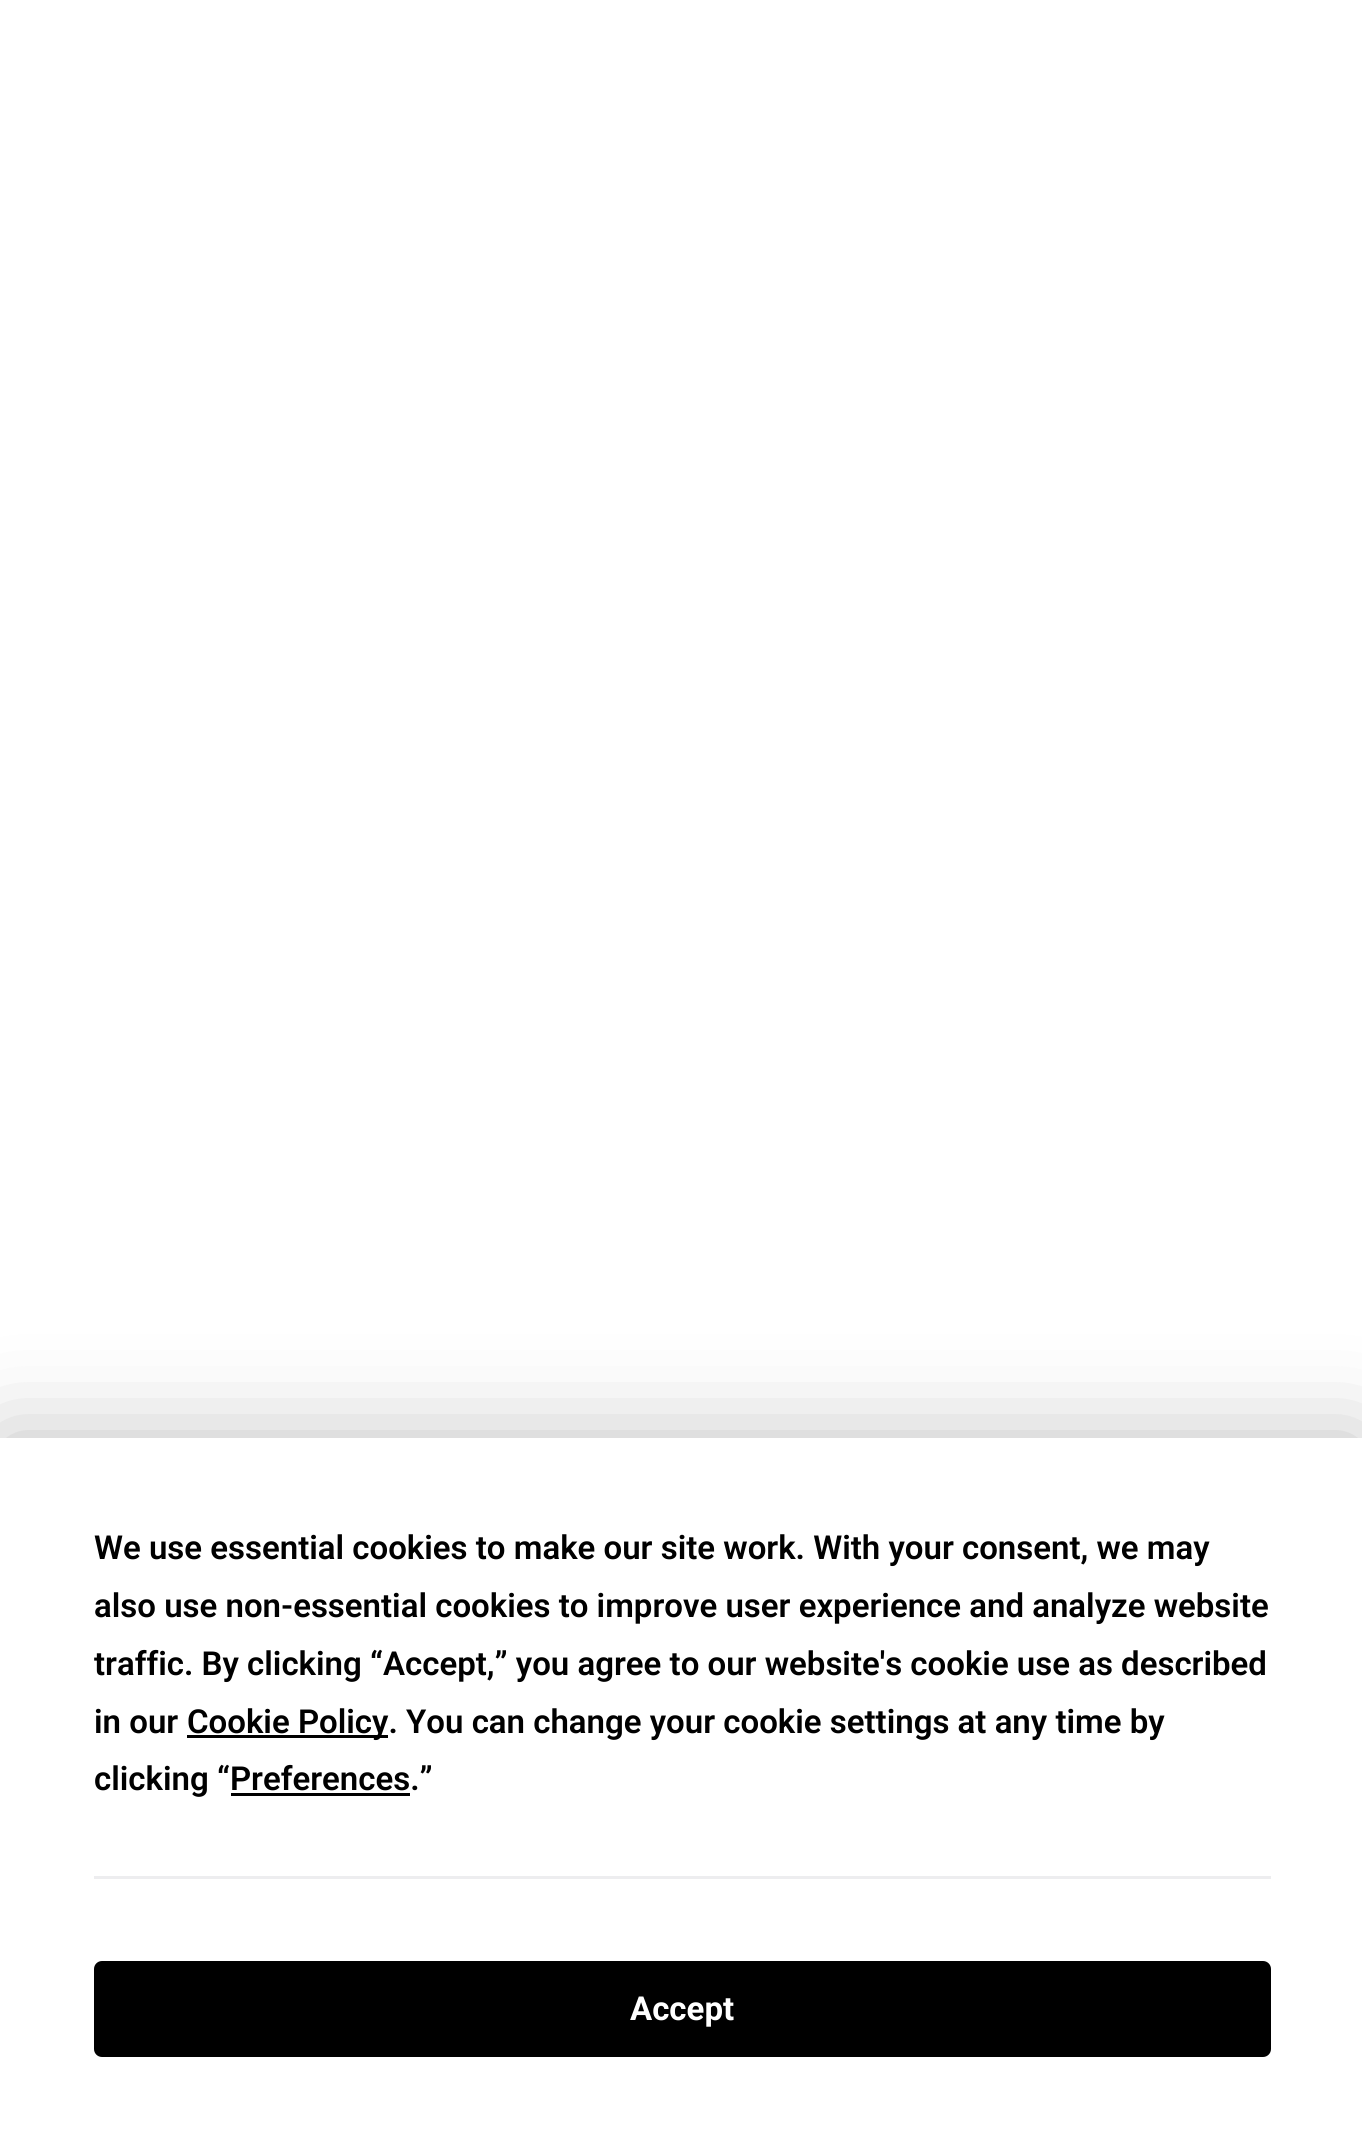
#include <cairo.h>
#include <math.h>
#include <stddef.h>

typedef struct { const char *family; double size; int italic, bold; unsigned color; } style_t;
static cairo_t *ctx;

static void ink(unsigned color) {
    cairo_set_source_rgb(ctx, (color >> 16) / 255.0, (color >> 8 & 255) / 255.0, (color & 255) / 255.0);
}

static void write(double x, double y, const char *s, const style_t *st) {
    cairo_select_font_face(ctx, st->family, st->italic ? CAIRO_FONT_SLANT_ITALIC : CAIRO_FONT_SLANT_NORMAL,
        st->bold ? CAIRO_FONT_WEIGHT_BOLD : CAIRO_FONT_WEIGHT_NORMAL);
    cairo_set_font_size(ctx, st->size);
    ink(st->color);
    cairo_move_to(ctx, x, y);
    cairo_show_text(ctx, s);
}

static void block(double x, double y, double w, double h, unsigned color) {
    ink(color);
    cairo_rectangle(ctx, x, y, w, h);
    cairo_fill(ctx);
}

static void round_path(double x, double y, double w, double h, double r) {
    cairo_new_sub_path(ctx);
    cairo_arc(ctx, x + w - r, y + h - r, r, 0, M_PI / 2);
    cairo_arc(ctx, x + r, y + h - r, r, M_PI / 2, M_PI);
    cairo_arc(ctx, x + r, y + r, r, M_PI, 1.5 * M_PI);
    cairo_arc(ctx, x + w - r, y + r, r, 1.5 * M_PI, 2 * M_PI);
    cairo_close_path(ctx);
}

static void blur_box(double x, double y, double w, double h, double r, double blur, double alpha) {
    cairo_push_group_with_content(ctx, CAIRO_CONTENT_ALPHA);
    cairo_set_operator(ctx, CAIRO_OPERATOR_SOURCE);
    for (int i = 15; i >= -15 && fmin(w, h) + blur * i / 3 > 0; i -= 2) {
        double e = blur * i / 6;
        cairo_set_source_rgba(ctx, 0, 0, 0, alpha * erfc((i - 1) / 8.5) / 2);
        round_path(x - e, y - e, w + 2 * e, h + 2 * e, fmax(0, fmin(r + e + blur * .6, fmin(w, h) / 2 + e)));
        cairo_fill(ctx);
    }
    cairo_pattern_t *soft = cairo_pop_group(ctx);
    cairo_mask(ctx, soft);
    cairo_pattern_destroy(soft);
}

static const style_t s1 = {"Roboto SemiBold", 33, 0, 0, 0x000000};
static const style_t s2 = {"Roboto", 33, 0, 1, 0xffffff};

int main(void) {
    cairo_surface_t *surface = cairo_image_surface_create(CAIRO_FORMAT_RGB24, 1362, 2139);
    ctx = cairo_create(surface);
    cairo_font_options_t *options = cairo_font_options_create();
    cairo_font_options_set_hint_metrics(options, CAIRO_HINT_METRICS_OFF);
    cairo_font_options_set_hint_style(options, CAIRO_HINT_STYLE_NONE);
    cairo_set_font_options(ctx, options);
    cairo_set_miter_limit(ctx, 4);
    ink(0xffffff);
    cairo_paint(ctx);
    ink(0x000000);
    blur_box(0, 1438, 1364, 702, 0, 48, 0.25);
    block(0, 1438, 1362, 701, 0xffffff);
    write(94, 1559, "We use essential cookies to make our site work. With your consent, we may", &s1);
    write(94, 1617, "also use non-essential cookies to improve user experience and analyze website", &s1);
    write(94, 1675, "traffic. By clicking “Accept,” you agree to our website's cookie use as described", &s1);
    write(94, 1733, "in our", &s1);
    block(187, 1735, 201, 3, 0x000000);
    write(187, 1733, "Cookie Policy. You can change your cookie settings at any time by", &s1);
    write(94, 1790, "clicking “Preferences.”", &s1);
    block(231, 1793, 179, 3, 0x000000);
    block(94, 1876, 1177, 3, 0xededef);
    ink(0x000000);
    round_path(95.5, 1962.5, 1174, 93, 6.5);
    cairo_fill_preserve(ctx);
    cairo_set_line_width(ctx, 3);
    cairo_stroke(ctx);
    write(630, 2020, "Accept", &s2);
    cairo_surface_write_to_png(surface, "screenshot.png");
    cairo_font_options_destroy(options);
    cairo_destroy(ctx);
    cairo_surface_destroy(surface);
    return 0;
}
